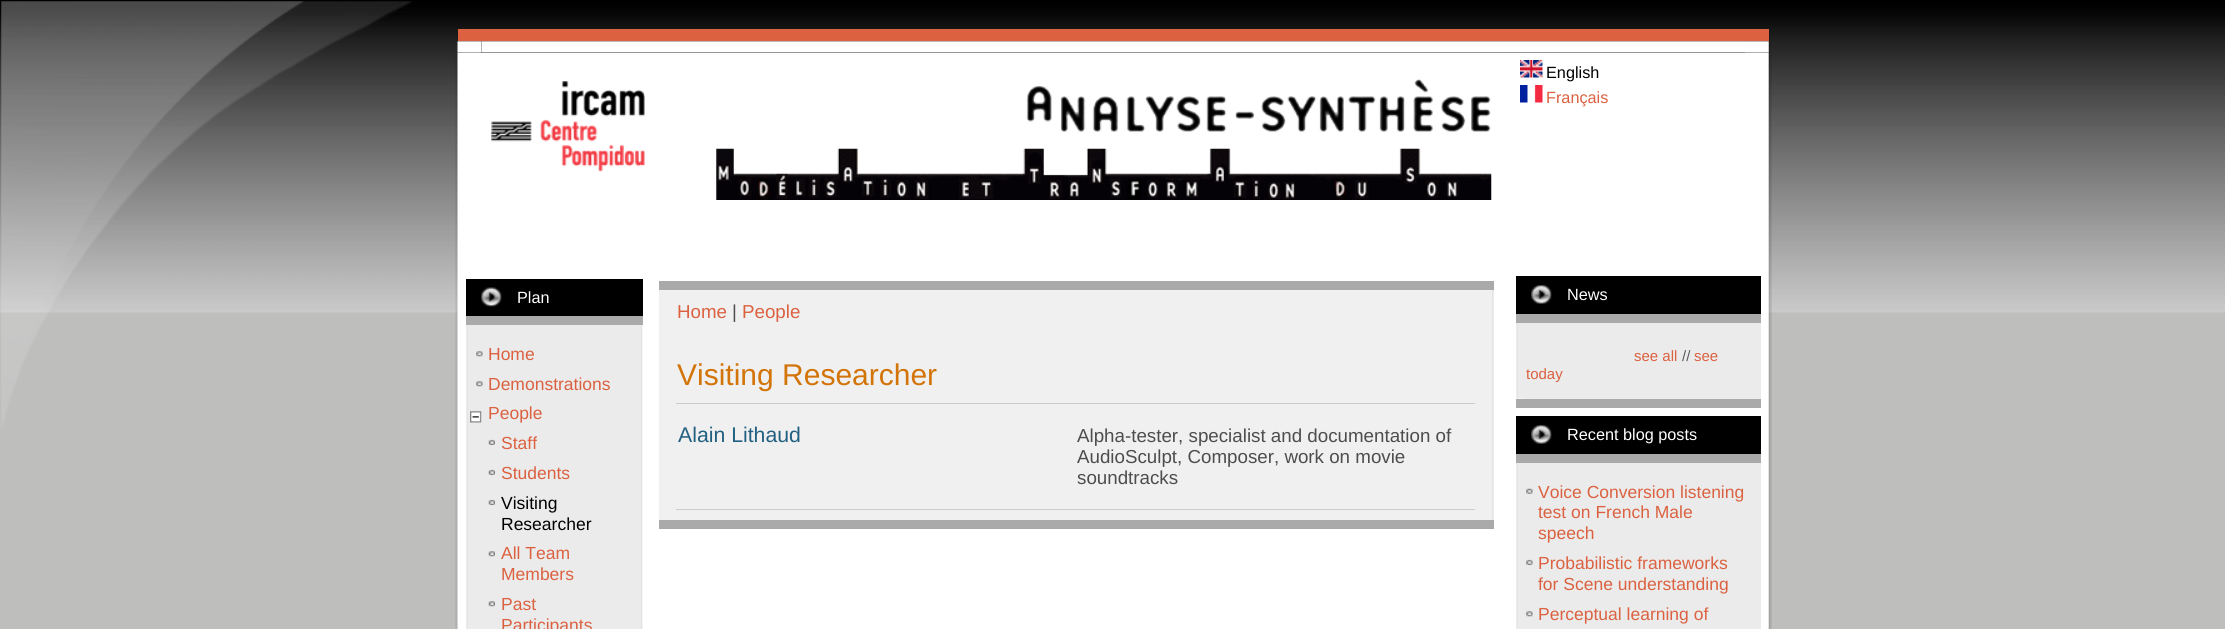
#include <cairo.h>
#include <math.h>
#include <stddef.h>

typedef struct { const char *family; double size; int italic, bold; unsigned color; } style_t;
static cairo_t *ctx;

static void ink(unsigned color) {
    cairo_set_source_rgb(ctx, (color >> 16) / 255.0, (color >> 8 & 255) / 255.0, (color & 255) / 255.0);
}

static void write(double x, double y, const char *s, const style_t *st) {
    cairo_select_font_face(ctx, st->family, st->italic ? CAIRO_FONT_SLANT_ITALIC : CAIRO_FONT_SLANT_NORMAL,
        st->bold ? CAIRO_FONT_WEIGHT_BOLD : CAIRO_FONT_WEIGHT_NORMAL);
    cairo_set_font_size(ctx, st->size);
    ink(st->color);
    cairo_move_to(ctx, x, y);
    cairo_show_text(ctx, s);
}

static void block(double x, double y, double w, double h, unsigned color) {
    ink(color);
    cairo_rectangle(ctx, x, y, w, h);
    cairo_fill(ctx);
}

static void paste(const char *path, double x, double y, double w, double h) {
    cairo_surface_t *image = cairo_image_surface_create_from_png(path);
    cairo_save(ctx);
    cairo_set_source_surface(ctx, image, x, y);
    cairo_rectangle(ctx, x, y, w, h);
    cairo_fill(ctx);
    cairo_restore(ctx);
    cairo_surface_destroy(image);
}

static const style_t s1 = {"Liberation Sans", 16.25, 0, 0, 0x000000};
static const style_t s2 = {"Liberation Sans", 16.25, 0, 0, 0xdb6140};
static const style_t s3 = {"Liberation Sans", 16.25, 0, 0, 0xffffff};
static const style_t s4 = {"Liberation Sans", 17.5, 0, 0, 0xdb6140};
static const style_t s5 = {"Liberation Sans", 17.5, 0, 0, 0x000000};
static const style_t s6 = {"Liberation Sans", 18.75, 0, 0, 0xdb6140};
static const style_t s7 = {"Liberation Sans", 18.75, 0, 0, 0x4d4d4d};
static const style_t s8 = {"Liberation Sans", 30, 0, 0, 0xd37409};
static const style_t s9 = {"Liberation Sans", 21.25, 0, 0, 0x226081};
static const style_t s10 = {"Liberation Sans", 15, 0, 0, 0xdb6140};
static const style_t s11 = {"Liberation Sans", 15, 0, 0, 0x5c5c5c};

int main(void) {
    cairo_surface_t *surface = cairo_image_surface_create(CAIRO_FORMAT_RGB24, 2225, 629);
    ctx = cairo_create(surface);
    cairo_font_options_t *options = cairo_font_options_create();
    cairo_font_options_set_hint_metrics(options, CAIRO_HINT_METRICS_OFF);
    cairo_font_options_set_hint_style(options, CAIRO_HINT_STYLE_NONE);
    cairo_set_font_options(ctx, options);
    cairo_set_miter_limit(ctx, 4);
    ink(0xbebebd);
    cairo_paint(ctx);
    paste("pic1.png", 0, 0, 2225, 313);
    paste("pic2.png", 1, 1, 412, 427);
    paste("pic3.png", 457, 34, 25, 19);
    paste("pic4.png", 481, 41, 1264, 12);
    paste("pic5.png", 1745, 34, 26, 19);
    paste("pic6.png", 455, 52, 27, 577);
    block(481, 53, 1264, 576, 0xffffff);
    paste("pic7.png", 1745, 52, 27, 577);
    paste("pic8.png", 491, 81, 154, 91);
    paste("pic9.png", 716, 78, 776, 122);
    block(458, 29, 1311, 12, 0xdb6140);
    paste("pic10.png", 1520, 60, 23, 18);
    write(1546, 78, "English", &s1);
    paste("pic11.png", 1520, 85, 23, 18);
    write(1546, 103, "Français", &s2);
    block(466, 316, 9, 9, 0xaaaaaa);
    block(466, 279, 177, 37, 0x000000);
    paste("pic12.png", 481, 287, 21, 20);
    write(517, 303, "Plan", &s3);
    block(475, 325, 159, 304, 0xebebeb);
    paste("pic13.png", 476, 351, 7, 6);
    write(488, 360, "Home", &s4);
    paste("pic13.png", 476, 381, 7, 6);
    write(488, 390, "Demonstrations", &s4);
    paste("pic17.png", 466, 325, 9, 304);
    paste("pic14.png", 470, 411, 12, 12);
    write(488, 419, "People", &s4);
    paste("pic15.png", 488, 439, 7, 6);
    write(501, 449, "Staff", &s4);
    paste("pic15.png", 488, 469, 7, 6);
    write(501, 479, "Students", &s4);
    paste("pic15.png", 488, 499, 7, 6);
    write(501, 509, "Visiting", &s5);
    write(501, 530, "Researcher", &s5);
    paste("pic16.png", 488, 551, 7, 6);
    write(501, 559, "All Team", &s4);
    write(501, 580, "Members", &s4);
    paste("pic16.png", 488, 601, 7, 6);
    write(501, 610, "Past", &s4);
    write(501, 631, "Participants", &s4);
    block(475, 316, 168, 9, 0xaaaaaa);
    paste("pic18.png", 634, 325, 9, 304);
    block(659, 281, 9, 9, 0xaaaaaa);
    block(668, 281, 826, 9, 0xaaaaaa);
    block(659, 290, 826, 230, 0xf0f0f0);
    paste("pic19.png", 1485, 290, 9, 230);
    write(677, 318, "Home", &s6);
    write(732, 318, "|", &s7);
    write(742, 318, "People", &s6);
    write(677, 385, "Visiting Researcher", &s8);
    block(676, 403, 799, 1, 0xcccccc);
    block(676, 509, 799, 1, 0xcccccc);
    write(678, 442, "Alain Lithaud", &s9);
    write(1077, 442, "Alpha-tester, specialist and documentation of", &s7);
    write(1077, 463, "AudioSculpt, Composer, work on movie", &s7);
    write(1077, 484, "soundtracks", &s7);
    block(659, 520, 9, 9, 0xaaaaaa);
    block(668, 520, 826, 9, 0xaaaaaa);
    block(1516, 314, 9, 9, 0xaaaaaa);
    block(1516, 276, 245, 38, 0x000000);
    paste("pic20.png", 1531, 284, 21, 20);
    write(1567, 300, "News", &s3);
    block(1525, 323, 236, 76, 0xebebeb);
    write(1634, 361, "see all", &s10);
    write(1682, 361, "//", &s11);
    write(1694, 361, "see", &s10);
    write(1526, 379, "today", &s10);
    block(1525, 314, 236, 9, 0xaaaaaa);
    paste("pic21.png", 1516, 323, 9, 76);
    block(1516, 399, 9, 9, 0xaaaaaa);
    block(1525, 399, 236, 9, 0xaaaaaa);
    block(1516, 454, 9, 9, 0xaaaaaa);
    block(1516, 416, 245, 38, 0x000000);
    paste("pic22.png", 1531, 424, 21, 20);
    write(1567, 440, "Recent blog posts", &s3);
    block(1525, 463, 236, 166, 0xebebeb);
    paste("pic23.png", 1526, 488, 7, 6);
    write(1538, 498, "Voice Conversion listening", &s4);
    write(1538, 518, "test on French Male", &s4);
    write(1538, 539, "speech", &s4);
    paste("pic24.png", 1526, 559, 7, 6);
    write(1538, 569, "Probabilistic frameworks", &s4);
    write(1538, 590, "for Scene understanding", &s4);
    paste("pic13.png", 1526, 611, 7, 6);
    write(1538, 620, "Perceptual learning of", &s4);
    block(1525, 454, 236, 9, 0xaaaaaa);
    paste("pic25.png", 1516, 463, 9, 166);
    cairo_surface_write_to_png(surface, "screenshot.png");
    cairo_font_options_destroy(options);
    cairo_destroy(ctx);
    cairo_surface_destroy(surface);
    return 0;
}
